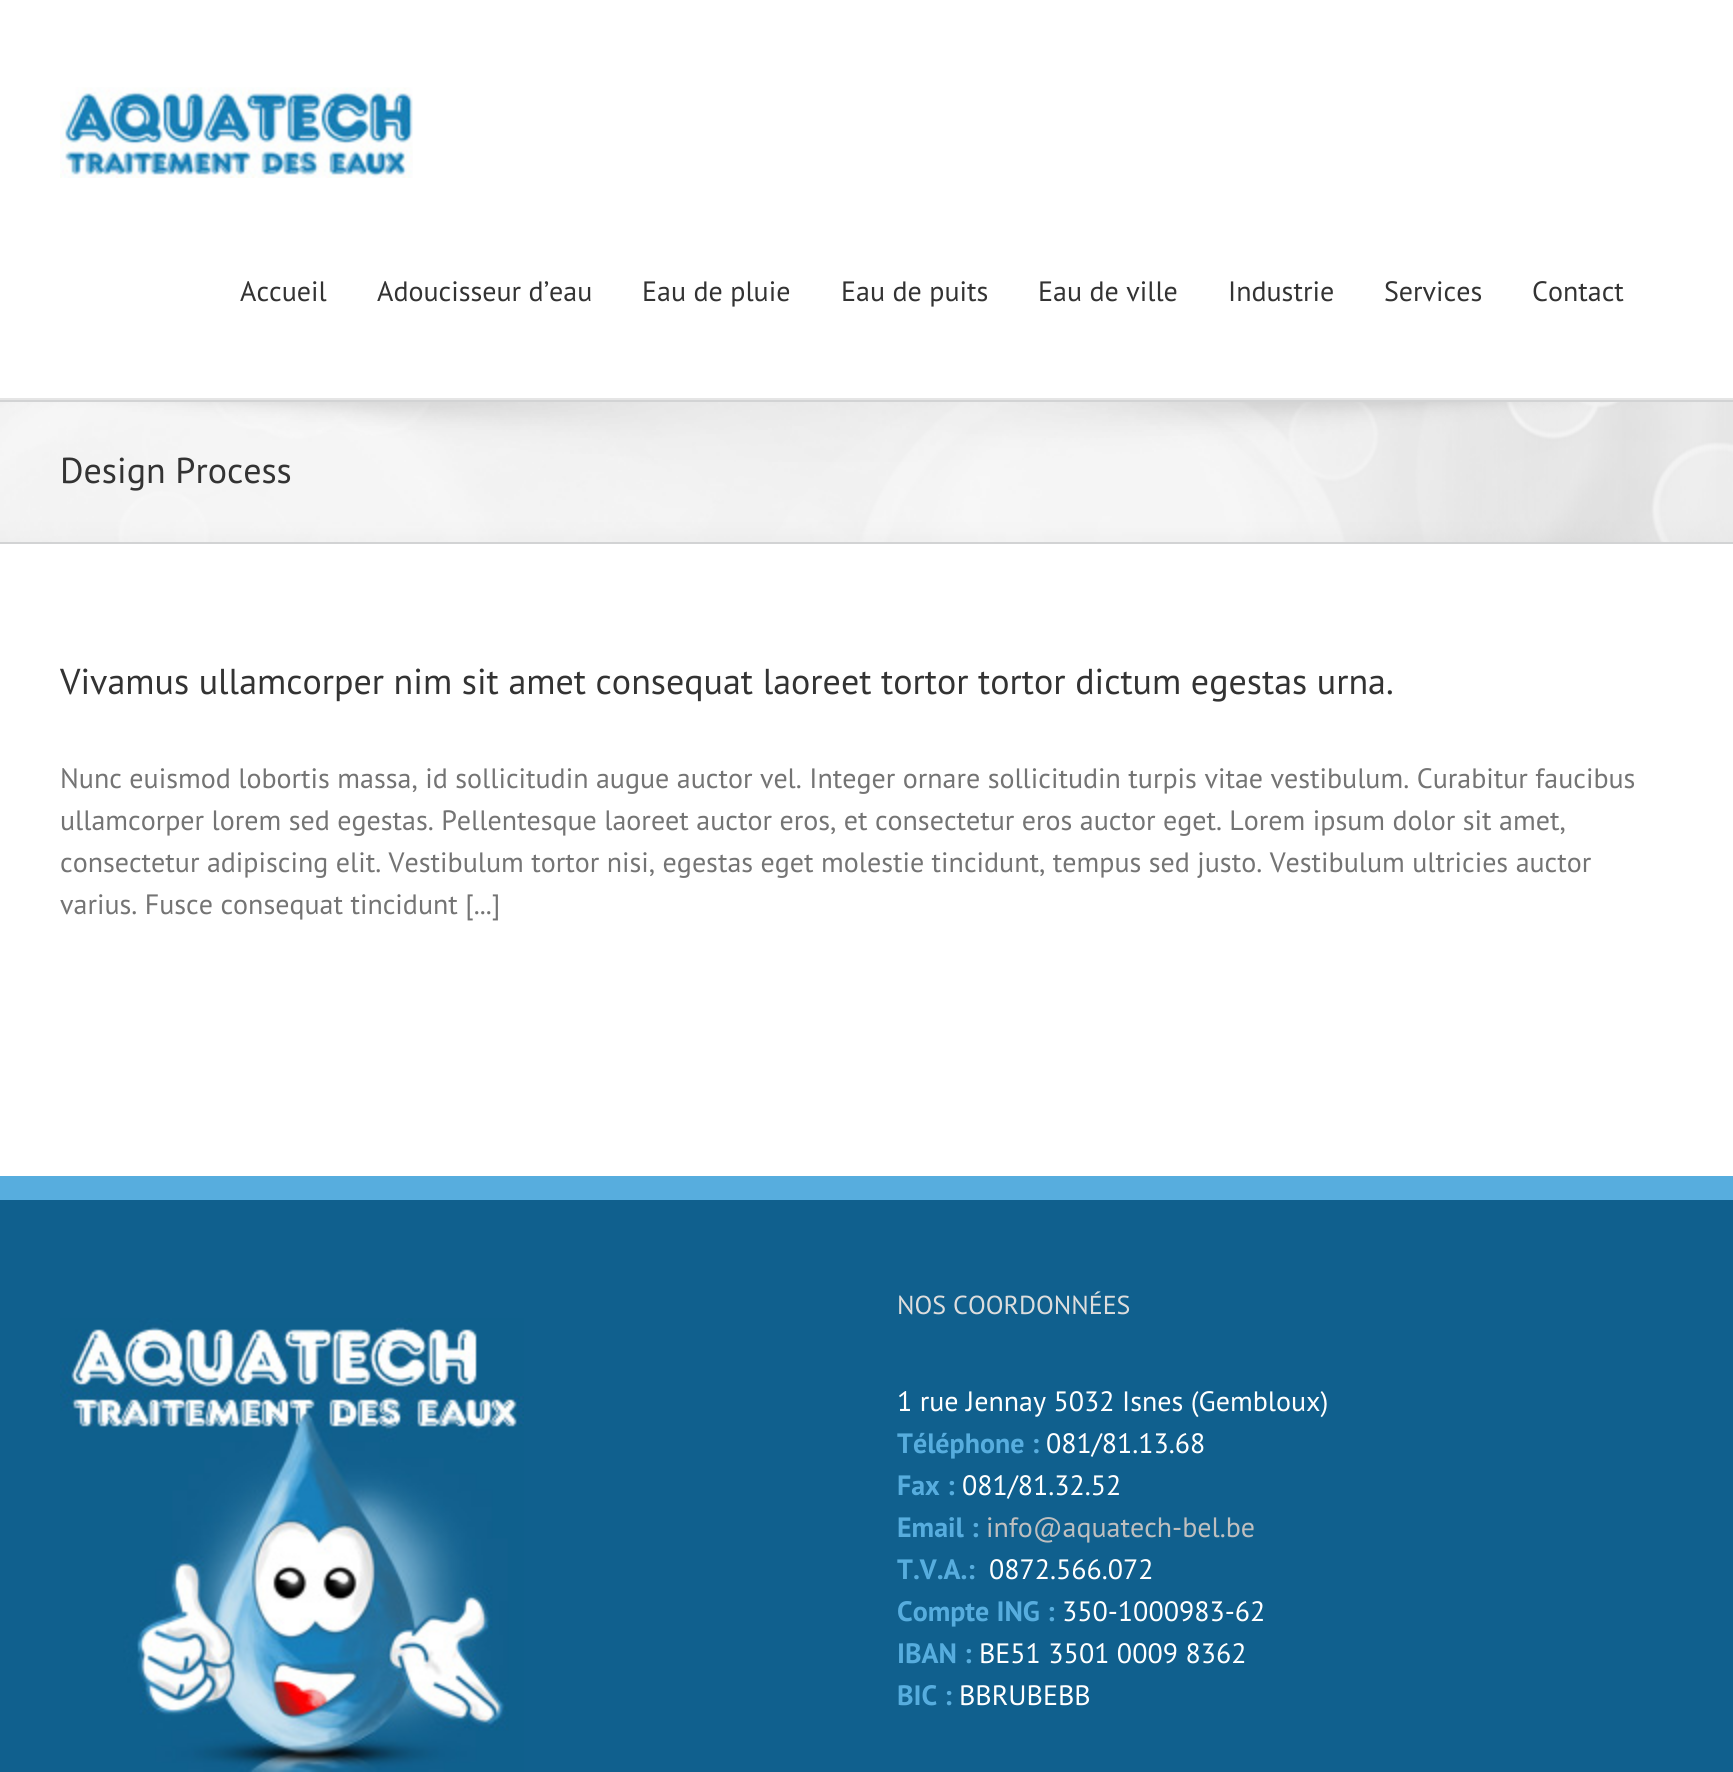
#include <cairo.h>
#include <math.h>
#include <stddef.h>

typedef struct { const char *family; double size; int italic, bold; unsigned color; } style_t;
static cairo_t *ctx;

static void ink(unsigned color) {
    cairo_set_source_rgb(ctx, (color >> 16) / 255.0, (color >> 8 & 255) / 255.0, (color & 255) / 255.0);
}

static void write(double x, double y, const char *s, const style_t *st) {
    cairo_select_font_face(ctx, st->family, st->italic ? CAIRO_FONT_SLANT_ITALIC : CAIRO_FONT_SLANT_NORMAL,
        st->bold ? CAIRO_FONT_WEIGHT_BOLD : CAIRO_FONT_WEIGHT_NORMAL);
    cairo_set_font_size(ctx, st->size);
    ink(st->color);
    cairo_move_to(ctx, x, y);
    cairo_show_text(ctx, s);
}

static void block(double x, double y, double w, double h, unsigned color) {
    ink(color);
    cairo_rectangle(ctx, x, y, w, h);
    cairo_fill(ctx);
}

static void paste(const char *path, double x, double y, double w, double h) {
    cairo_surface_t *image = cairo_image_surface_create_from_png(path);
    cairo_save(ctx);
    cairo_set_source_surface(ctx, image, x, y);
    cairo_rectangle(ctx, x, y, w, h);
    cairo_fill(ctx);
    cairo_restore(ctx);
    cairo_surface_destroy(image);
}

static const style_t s1 = {"PT Sans", 28, 0, 0, 0x333333};
static const style_t s2 = {"PT Sans", 36, 0, 0, 0x333333};
static const style_t s3 = {"PT Sans", 28, 0, 0, 0x747474};
static const style_t s4 = {"PT Sans", 26, 0, 0, 0xdddddd};
static const style_t s5 = {"PT Sans", 28, 0, 0, 0xffffff};
static const style_t s6 = {"PT Sans", 28, 0, 1, 0x57adde};
static const style_t s7 = {"PT Sans", 28, 0, 0, 0xbfbfbf};

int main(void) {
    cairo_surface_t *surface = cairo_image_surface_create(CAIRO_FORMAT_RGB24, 1733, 1772);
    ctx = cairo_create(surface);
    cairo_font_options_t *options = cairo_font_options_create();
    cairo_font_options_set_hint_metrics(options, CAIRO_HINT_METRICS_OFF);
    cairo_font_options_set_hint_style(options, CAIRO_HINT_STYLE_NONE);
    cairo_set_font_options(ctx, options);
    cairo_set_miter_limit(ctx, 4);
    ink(0xffffff);
    cairo_paint(ctx);
    block(0, 398, 1733, 2, 0xe5e5e5);
    paste("pic1.png", 60, 87, 353, 91);
    write(240, 301, "Accueil", &s1);
    write(377, 301, "Adoucisseur d’eau", &s1);
    write(642, 301, "Eau de pluie", &s1);
    write(841, 301, "Eau de puits", &s1);
    write(1038, 301, "Eau de ville", &s1);
    write(1228, 301, "Industrie", &s1);
    write(1384, 301, "Services", &s1);
    write(1532, 301, "Contact", &s1);
    block(0, 402, 1733, 140, 0xf6f6f6);
    paste("pic2.png", 0, 402, 1733, 140);
    block(0, 400, 1733, 2, 0xd2d3d4);
    block(0, 542, 1733, 2, 0xd2d3d4);
    write(60, 483, "Design Process", &s2);
    write(60, 694, "Vivamus ullamcorper nim sit amet consequat laoreet tortor tortor dictum egestas urna.", &s2);
    write(60, 788, "Nunc euismod lobortis massa, id sollicitudin augue auctor vel. Integer ornare sollicitudin turpis vitae vestibulum. Curabitur faucibus", &s3);
    write(60, 830, "ullamcorper lorem sed egestas. Pellentesque laoreet auctor eros, et consectetur eros auctor eget. Lorem ipsum dolor sit amet,", &s3);
    write(60, 872, "consectetur adipiscing elit. Vestibulum tortor nisi, egestas eget molestie tincidunt, tempus sed justo. Vestibulum ultricies auctor", &s3);
    write(60, 914, "varius. Fusce consequat tincidunt [...]", &s3);
    block(0, 1200, 1733, 572, 0x10608e);
    block(0, 1176, 1733, 24, 0x57adde);
    paste("pic3.png", 60, 1318, 464, 454);
    write(897, 1314, "NOS COORDONNÉES", &s4);
    write(897, 1411, "1 rue Jennay 5032 Isnes (Gembloux)", &s5);
    write(897, 1453, "Téléphone :", &s6);
    write(1046, 1453, "081/81.13.68", &s5);
    write(897, 1495, "Fax :", &s6);
    write(962, 1495, "081/81.32.52", &s5);
    write(897, 1537, "Email :", &s6);
    write(986, 1537, "info@aquatech-bel.be", &s7);
    write(897, 1579, "T.V.A.:", &s6);
    write(989, 1579, "0872.566.072", &s5);
    write(897, 1621, "Compte ING :", &s6);
    write(1062, 1621, "350-1000983-62", &s5);
    write(897, 1663, "IBAN :", &s6);
    write(979, 1663, "BE51 3501 0009 8362", &s5);
    write(897, 1705, "BIC :", &s6);
    write(959, 1705, "BBRUBEBB", &s5);
    cairo_surface_write_to_png(surface, "screenshot.png");
    cairo_font_options_destroy(options);
    cairo_destroy(ctx);
    cairo_surface_destroy(surface);
    return 0;
}
